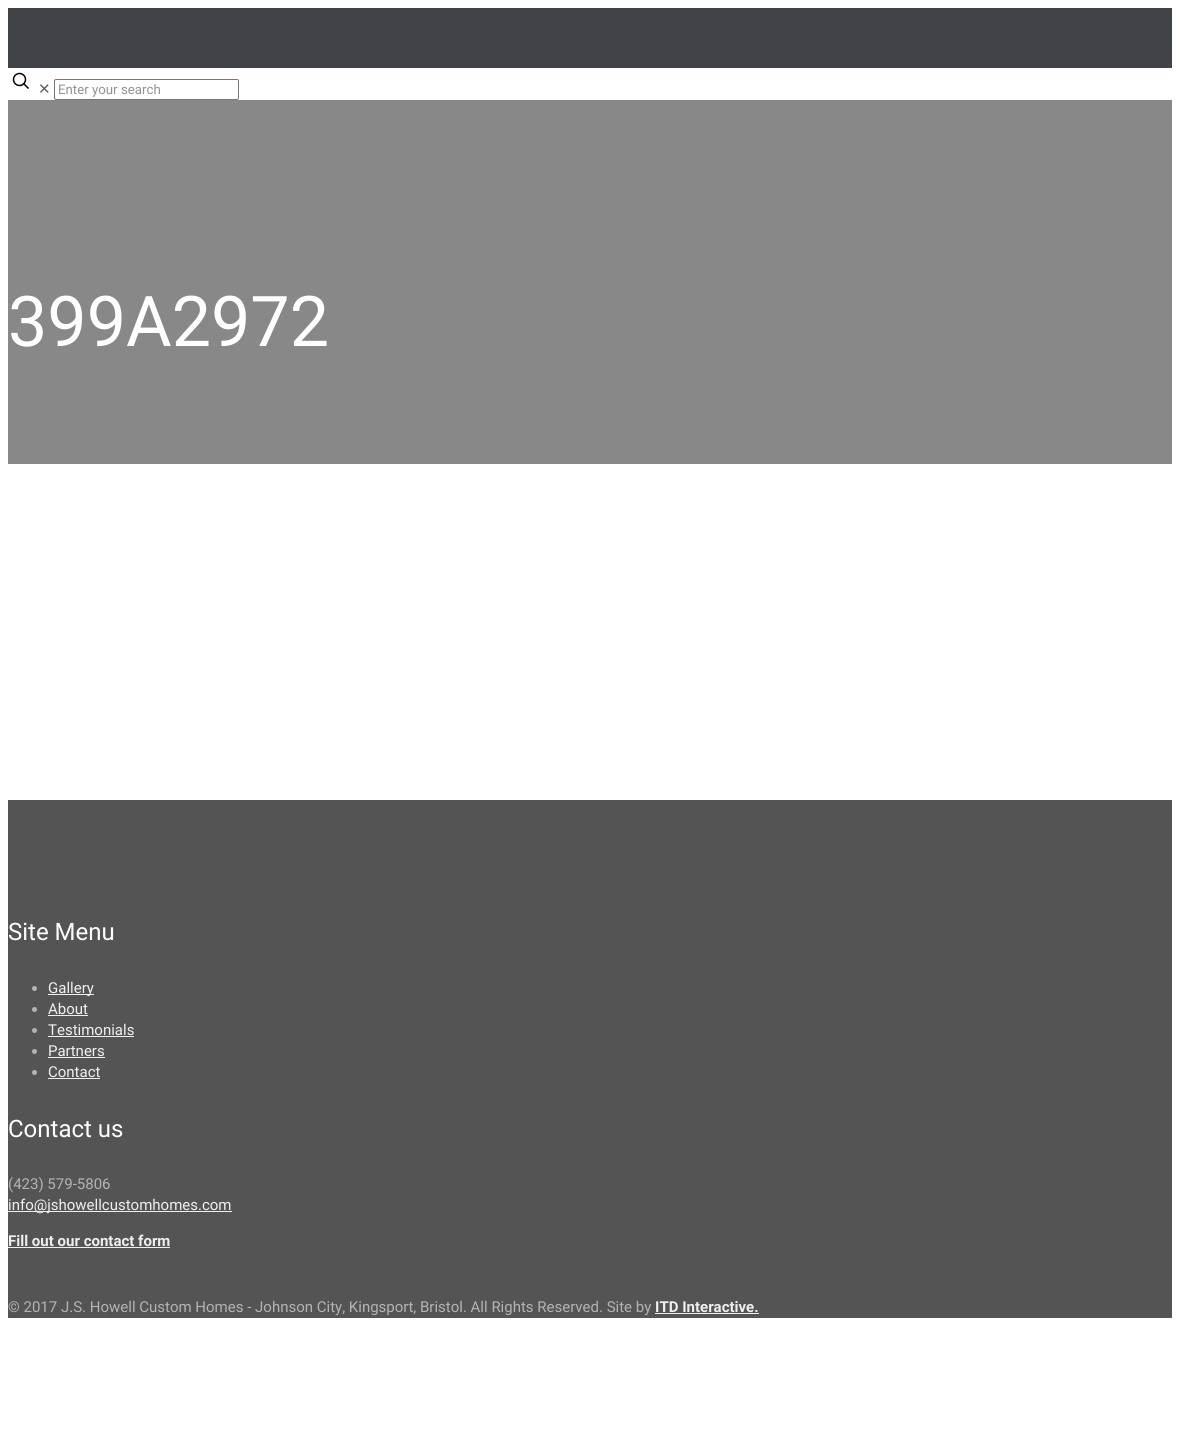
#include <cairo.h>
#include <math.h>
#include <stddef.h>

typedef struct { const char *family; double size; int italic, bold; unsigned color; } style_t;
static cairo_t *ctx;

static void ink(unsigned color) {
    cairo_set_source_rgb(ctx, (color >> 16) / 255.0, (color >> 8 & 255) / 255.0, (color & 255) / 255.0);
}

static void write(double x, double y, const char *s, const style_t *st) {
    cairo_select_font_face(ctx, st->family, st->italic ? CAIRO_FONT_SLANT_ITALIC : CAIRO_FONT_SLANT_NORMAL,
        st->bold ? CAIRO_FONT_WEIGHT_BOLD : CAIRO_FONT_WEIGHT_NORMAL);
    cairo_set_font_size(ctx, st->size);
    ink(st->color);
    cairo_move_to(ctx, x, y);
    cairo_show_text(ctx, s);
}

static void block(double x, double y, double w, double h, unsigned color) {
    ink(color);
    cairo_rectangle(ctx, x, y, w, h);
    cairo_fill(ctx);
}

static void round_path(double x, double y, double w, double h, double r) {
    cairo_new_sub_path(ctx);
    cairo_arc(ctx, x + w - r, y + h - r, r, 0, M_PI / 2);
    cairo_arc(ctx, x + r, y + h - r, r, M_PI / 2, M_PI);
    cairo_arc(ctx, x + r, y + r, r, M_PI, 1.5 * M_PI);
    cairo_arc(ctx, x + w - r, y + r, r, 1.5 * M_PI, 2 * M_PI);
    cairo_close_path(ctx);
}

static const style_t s1 = {"DejaVu Sans", 15, 0, 0, 0x626262};
static const style_t s2 = {"Roboto", 13.25, 0, 0, 0x929292};
static const style_t s3 = {"Roboto", 70, 0, 0, 0xffffff};
static const style_t s4 = {"Roboto", 24, 0, 0, 0xffffff};
static const style_t s5 = {"Roboto", 15, 0, 0, 0xefefef};
static const style_t s6 = {"Roboto", 15, 0, 0, 0xb3b3b5};
static const style_t s7 = {"Roboto", 15, 0, 1, 0xefefef};

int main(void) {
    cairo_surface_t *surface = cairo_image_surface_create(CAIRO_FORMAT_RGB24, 1180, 1434);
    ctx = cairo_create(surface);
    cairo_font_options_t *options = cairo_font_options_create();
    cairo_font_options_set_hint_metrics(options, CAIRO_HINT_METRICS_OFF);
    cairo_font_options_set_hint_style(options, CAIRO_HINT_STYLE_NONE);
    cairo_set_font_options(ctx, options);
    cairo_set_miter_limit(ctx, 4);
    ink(0xffffff);
    cairo_paint(ctx);
    block(8, 100, 1164, 364, 0x888888);
    block(8, 8, 1164, 60, 0x404348);
    cairo_arc(ctx, 19.5, 79.5, 6, 0, 2 * M_PI);
    ink(0x000000);
    cairo_set_line_width(ctx, 1.5);
    cairo_stroke(ctx);
    cairo_new_path(ctx);
    cairo_move_to(ctx, 23.5, 83.5);
    cairo_line_to(ctx, 28.5, 88.5);
    cairo_stroke(ctx);
    write(38, 94, "✕", &s1);
    round_path(54.5, 79.5, 184, 20, 1.5);
    ink(0x767676);
    cairo_set_line_width(ctx, 1);
    cairo_stroke(ctx);
    write(58, 94, "Enter your search", &s2);
    write(8, 346, "399A2972", &s3);
    block(8, 800, 1164, 518, 0x545454);
    write(8, 940, "Site Menu", &s4);
    ink(0xb3b3b5);
    cairo_new_path(ctx);
    cairo_arc(ctx, 34.5, 988.5, 2.5, 0, 2 * M_PI);
    cairo_fill(ctx);
    block(48, 994, 46, 1, 0xefefef);
    write(48, 993, "Gallery", &s5);
    ink(0xb3b3b5);
    cairo_new_path(ctx);
    cairo_arc(ctx, 34.5, 1009.5, 2.5, 0, 2 * M_PI);
    cairo_fill(ctx);
    write(48, 1014, "About", &s5);
    block(48, 1015, 40, 1, 0xefefef);
    ink(0xb3b3b5);
    cairo_new_path(ctx);
    cairo_arc(ctx, 34.5, 1030.5, 2.5, 0, 2 * M_PI);
    cairo_fill(ctx);
    write(48, 1035, "Testimonials", &s5);
    block(48, 1036, 86, 1, 0xefefef);
    ink(0xb3b3b5);
    cairo_new_path(ctx);
    cairo_arc(ctx, 34.5, 1051.5, 2.5, 0, 2 * M_PI);
    cairo_fill(ctx);
    write(48, 1056, "Partners", &s5);
    block(48, 1057, 57, 1, 0xefefef);
    ink(0xb3b3b5);
    cairo_new_path(ctx);
    cairo_arc(ctx, 34.5, 1072.5, 2.5, 0, 2 * M_PI);
    cairo_fill(ctx);
    write(48, 1077, "Contact", &s5);
    block(48, 1078, 52, 1, 0xefefef);
    write(8, 1137, "Contact us", &s4);
    write(8, 1189, "(423) 579-5806", &s6);
    block(8, 1211, 224, 1, 0xefefef);
    write(8, 1210, "info@jshowellcustomhomes.com", &s5);
    write(8, 1246, "Fill out our contact form", &s7);
    block(8, 1247, 162, 1, 0xefefef);
    write(8, 1312, "© 2017 J.S. Howell Custom Homes - Johnson City, Kingsport, Bristol. All Rights Reserved. Site by", &s6);
    write(655, 1312, "ITD Interactive.", &s7);
    block(655, 1313, 104, 1, 0xefefef);
    cairo_surface_write_to_png(surface, "screenshot.png");
    cairo_font_options_destroy(options);
    cairo_destroy(ctx);
    cairo_surface_destroy(surface);
    return 0;
}
